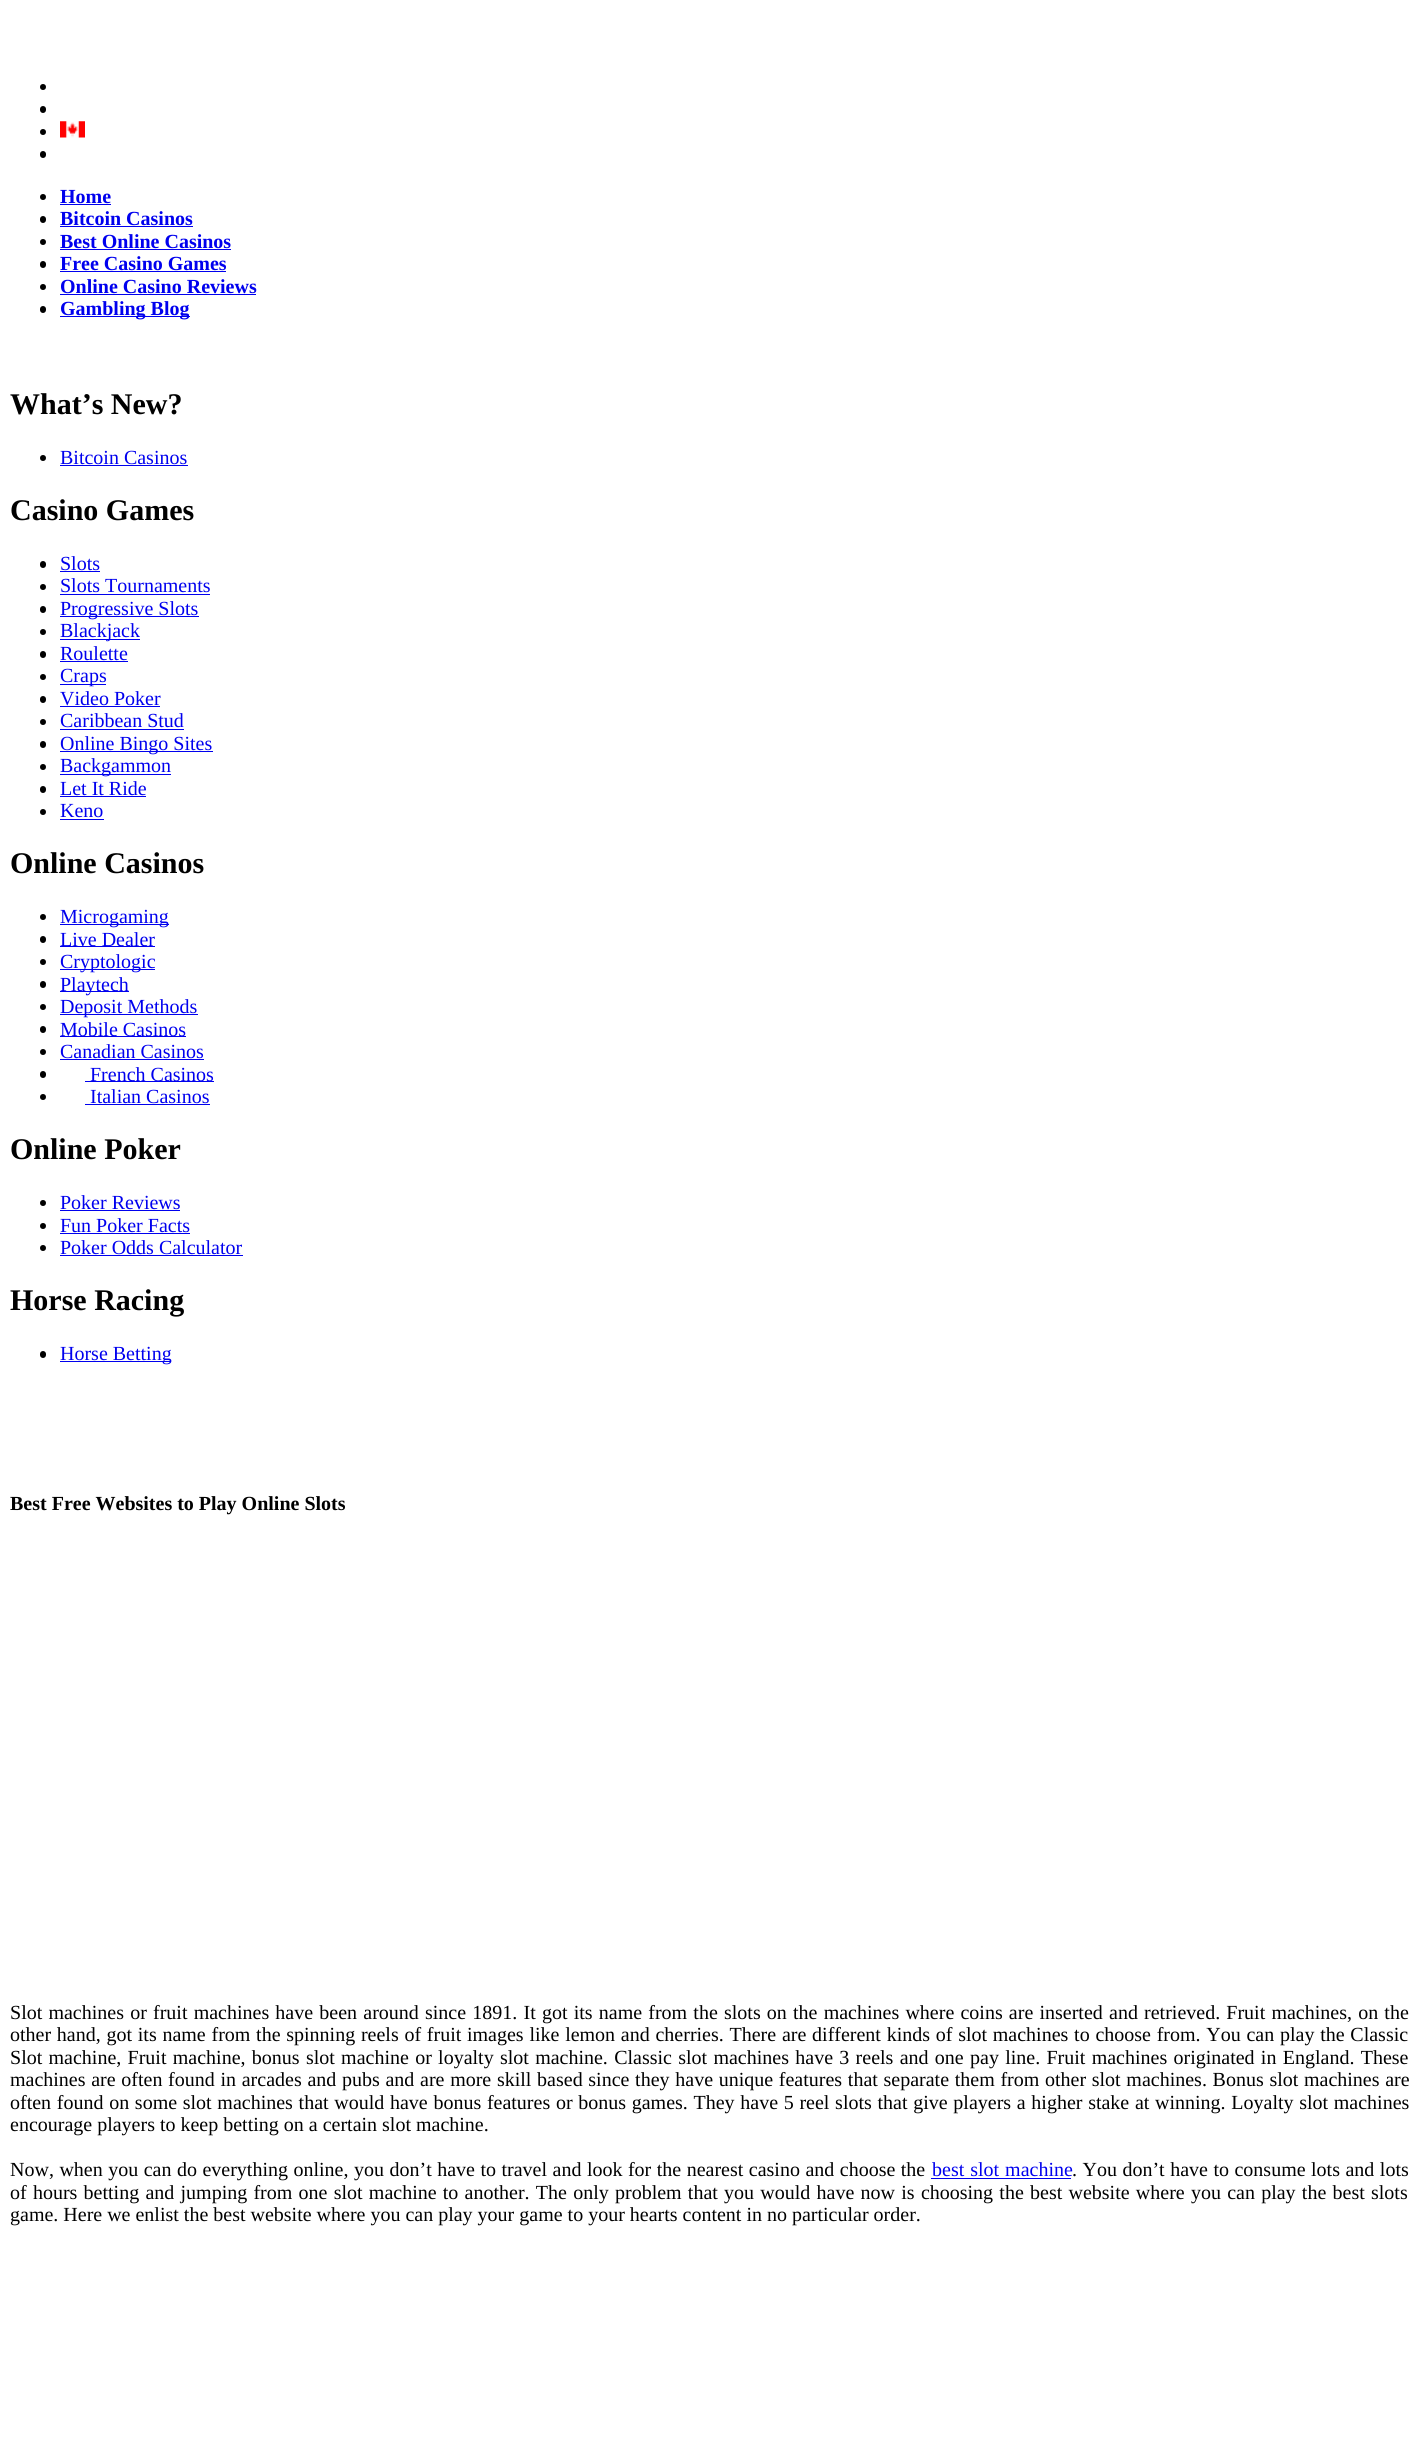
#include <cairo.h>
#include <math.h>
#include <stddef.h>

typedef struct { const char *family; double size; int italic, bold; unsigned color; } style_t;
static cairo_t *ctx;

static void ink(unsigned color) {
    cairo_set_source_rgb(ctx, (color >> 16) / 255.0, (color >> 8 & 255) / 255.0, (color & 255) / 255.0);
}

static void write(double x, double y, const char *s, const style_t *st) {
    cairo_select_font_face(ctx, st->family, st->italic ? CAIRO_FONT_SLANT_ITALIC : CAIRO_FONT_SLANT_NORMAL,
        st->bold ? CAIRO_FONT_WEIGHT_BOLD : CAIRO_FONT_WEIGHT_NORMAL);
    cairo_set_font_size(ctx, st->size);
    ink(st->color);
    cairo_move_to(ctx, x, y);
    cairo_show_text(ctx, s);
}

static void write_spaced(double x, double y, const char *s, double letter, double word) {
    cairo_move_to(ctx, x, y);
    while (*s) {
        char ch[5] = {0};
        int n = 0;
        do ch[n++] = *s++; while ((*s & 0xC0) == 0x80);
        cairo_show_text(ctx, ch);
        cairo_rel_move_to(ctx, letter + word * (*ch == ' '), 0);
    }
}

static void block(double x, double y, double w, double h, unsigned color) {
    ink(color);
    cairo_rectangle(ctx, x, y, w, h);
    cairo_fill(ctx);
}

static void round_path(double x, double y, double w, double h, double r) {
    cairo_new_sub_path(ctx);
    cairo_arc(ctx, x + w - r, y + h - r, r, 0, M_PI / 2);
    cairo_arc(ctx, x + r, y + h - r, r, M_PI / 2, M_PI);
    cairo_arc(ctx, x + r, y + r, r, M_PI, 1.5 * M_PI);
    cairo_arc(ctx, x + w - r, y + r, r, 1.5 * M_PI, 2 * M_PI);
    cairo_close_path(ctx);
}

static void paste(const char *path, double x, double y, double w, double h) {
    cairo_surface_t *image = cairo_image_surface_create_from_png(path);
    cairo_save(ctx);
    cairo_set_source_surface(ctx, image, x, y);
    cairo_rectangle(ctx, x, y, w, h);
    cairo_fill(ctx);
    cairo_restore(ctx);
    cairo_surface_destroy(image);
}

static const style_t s1 = {"Liberation Serif", 20, 0, 1, 0x0000ee};
static const style_t s2 = {"Liberation Serif", 30, 0, 1, 0x000000};
static const style_t s3 = {"Liberation Serif", 20, 0, 0, 0x0000ee};
static const style_t s4 = {"Liberation Serif", 20, 0, 1, 0x000000};
static const style_t s5 = {"Liberation Serif", 20, 0, 0, 0x000000};

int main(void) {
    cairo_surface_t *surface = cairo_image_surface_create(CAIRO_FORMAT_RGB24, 1418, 2458);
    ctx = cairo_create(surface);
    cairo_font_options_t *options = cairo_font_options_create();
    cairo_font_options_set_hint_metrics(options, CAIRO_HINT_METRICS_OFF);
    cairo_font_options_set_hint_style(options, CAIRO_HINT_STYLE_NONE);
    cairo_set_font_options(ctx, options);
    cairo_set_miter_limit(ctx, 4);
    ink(0xffffff);
    cairo_paint(ctx);
    ink(0x000000);
    cairo_arc(ctx, 43, 87, 3, 0, 2 * M_PI);
    cairo_fill(ctx);
    round_path(40, 106, 6, 7, 3);
    cairo_fill(ctx);
    cairo_arc(ctx, 43, 132, 3, 0, 2 * M_PI);
    cairo_fill(ctx);
    paste("pic1.png", 60, 121, 25, 17);
    round_path(40, 151, 6, 7, 3);
    cairo_fill(ctx);
    cairo_arc(ctx, 43, 197, 3, 0, 2 * M_PI);
    cairo_fill(ctx);
    write(60, 203, "Home", &s1);
    block(60, 204, 51, 1, 0x0000ee);
    ink(0x000000);
    round_path(40, 216, 6, 7, 3);
    cairo_fill(ctx);
    write(60, 225, "Bitcoin Casinos", &s1);
    block(60, 226, 133, 1, 0x0000ee);
    ink(0x000000);
    cairo_new_path(ctx);
    cairo_arc(ctx, 43, 242, 3, 0, 2 * M_PI);
    cairo_fill(ctx);
    write(60, 248, "Best Online Casinos", &s1);
    block(60, 249, 171, 1, 0x0000ee);
    ink(0x000000);
    round_path(40, 261, 6, 7, 3);
    cairo_fill(ctx);
    write(60, 270, "Free Casino Games", &s1);
    block(60, 271, 166, 1, 0x0000ee);
    ink(0x000000);
    cairo_new_path(ctx);
    cairo_arc(ctx, 43, 287, 3, 0, 2 * M_PI);
    cairo_fill(ctx);
    write(60, 293, "Online Casino Reviews", &s1);
    block(60, 294, 196, 1, 0x0000ee);
    ink(0x000000);
    round_path(40, 306, 6, 7, 3);
    cairo_fill(ctx);
    block(60, 316, 130, 1, 0x0000ee);
    write(60, 315, "Gambling Blog", &s1);
    write(10, 414, "What’s New?", &s2);
    cairo_new_path(ctx);
    cairo_arc(ctx, 43, 458, 3, 0, 2 * M_PI);
    cairo_fill(ctx);
    write(60, 464, "Bitcoin Casinos", &s3);
    block(60, 465, 128, 1, 0x0000ee);
    write(10, 520, "Casino Games", &s2);
    round_path(40, 561, 6, 7, 3);
    cairo_fill(ctx);
    write(60, 570, "Slots", &s3);
    block(60, 571, 40, 1, 0x0000ee);
    ink(0x000000);
    cairo_new_path(ctx);
    cairo_arc(ctx, 43, 587, 3, 0, 2 * M_PI);
    cairo_fill(ctx);
    write(60, 592, "Slots Tournaments", &s3);
    block(60, 594, 150, 1, 0x0000ee);
    ink(0x000000);
    round_path(40, 606, 6, 7, 3);
    cairo_fill(ctx);
    block(60, 616, 139, 1, 0x0000ee);
    write(60, 615, "Progressive Slots", &s3);
    ink(0x000000);
    cairo_new_path(ctx);
    cairo_arc(ctx, 43, 632, 3, 0, 2 * M_PI);
    cairo_fill(ctx);
    block(60, 639, 80, 1, 0x0000ee);
    write(60, 637, "Blackjack", &s3);
    ink(0x000000);
    round_path(40, 651, 6, 7, 3);
    cairo_fill(ctx);
    write(60, 660, "Roulette", &s3);
    block(60, 661, 68, 1, 0x0000ee);
    ink(0x000000);
    cairo_new_path(ctx);
    cairo_arc(ctx, 43, 677, 3, 0, 2 * M_PI);
    cairo_fill(ctx);
    block(60, 684, 46, 1, 0x0000ee);
    write(60, 682, "Craps", &s3);
    ink(0x000000);
    round_path(40, 696, 6, 7, 3);
    cairo_fill(ctx);
    write(60, 705, "Video Poker", &s3);
    block(60, 706, 100, 1, 0x0000ee);
    ink(0x000000);
    cairo_new_path(ctx);
    cairo_arc(ctx, 43, 722, 3, 0, 2 * M_PI);
    cairo_fill(ctx);
    write(60, 727, "Caribbean Stud", &s3);
    block(60, 729, 124, 1, 0x0000ee);
    ink(0x000000);
    round_path(40, 741, 6, 7, 3);
    cairo_fill(ctx);
    block(60, 751, 153, 1, 0x0000ee);
    write(60, 750, "Online Bingo Sites", &s3);
    ink(0x000000);
    cairo_new_path(ctx);
    cairo_arc(ctx, 43, 767, 3, 0, 2 * M_PI);
    cairo_fill(ctx);
    block(60, 774, 111, 1, 0x0000ee);
    write(60, 772, "Backgammon", &s3);
    ink(0x000000);
    round_path(40, 786, 6, 7, 3);
    cairo_fill(ctx);
    write(60, 795, "Let It Ride", &s3);
    block(60, 796, 86, 1, 0x0000ee);
    ink(0x000000);
    cairo_new_path(ctx);
    cairo_arc(ctx, 43, 812, 3, 0, 2 * M_PI);
    cairo_fill(ctx);
    write(60, 817, "Keno", &s3);
    block(60, 819, 44, 1, 0x0000ee);
    write(10, 873, "Online Casinos", &s2);
    cairo_new_path(ctx);
    cairo_arc(ctx, 43, 917, 3, 0, 2 * M_PI);
    cairo_fill(ctx);
    block(60, 924, 109, 1, 0x0000ee);
    write(60, 923, "Microgaming", &s3);
    ink(0x000000);
    round_path(40, 936, 6, 7, 3);
    cairo_fill(ctx);
    block(60, 946, 95, 1, 0x0000ee);
    write(60, 946, "Live Dealer", &s3);
    ink(0x000000);
    cairo_new_path(ctx);
    cairo_arc(ctx, 43, 962, 3, 0, 2 * M_PI);
    cairo_fill(ctx);
    block(60, 969, 95, 1, 0x0000ee);
    write(60, 968, "Cryptologic", &s3);
    ink(0x000000);
    round_path(40, 981, 6, 7, 3);
    cairo_fill(ctx);
    block(60, 991, 69, 1, 0x0000ee);
    write(60, 991, "Playtech", &s3);
    ink(0x000000);
    cairo_new_path(ctx);
    cairo_arc(ctx, 43, 1007, 3, 0, 2 * M_PI);
    cairo_fill(ctx);
    block(60, 1014, 138, 1, 0x0000ee);
    write(60, 1013, "Deposit Methods", &s3);
    ink(0x000000);
    round_path(40, 1026, 6, 7, 3);
    cairo_fill(ctx);
    block(60, 1036, 126, 1, 0x0000ee);
    write(60, 1036, "Mobile Casinos", &s3);
    ink(0x000000);
    cairo_new_path(ctx);
    cairo_arc(ctx, 43, 1052, 3, 0, 2 * M_PI);
    cairo_fill(ctx);
    write(60, 1058, "Canadian Casinos", &s3);
    block(60, 1059, 144, 1, 0x0000ee);
    ink(0x000000);
    round_path(40, 1071, 6, 7, 3);
    cairo_fill(ctx);
    block(85, 1081, 129, 1, 0x0000ee);
    write(90, 1081, "French Casinos", &s3);
    ink(0x000000);
    cairo_new_path(ctx);
    cairo_arc(ctx, 43, 1097, 3, 0, 2 * M_PI);
    cairo_fill(ctx);
    write(90, 1103, "Italian Casinos", &s3);
    block(85, 1104, 125, 1, 0x0000ee);
    write(10, 1159, "Online Poker", &s2);
    cairo_new_path(ctx);
    cairo_arc(ctx, 43, 1203, 3, 0, 2 * M_PI);
    cairo_fill(ctx);
    write(60, 1209, "Poker Reviews", &s3);
    block(60, 1210, 120, 1, 0x0000ee);
    ink(0x000000);
    cairo_new_path(ctx);
    cairo_arc(ctx, 43, 1226, 3, 0, 2 * M_PI);
    cairo_fill(ctx);
    write(60, 1232, "Fun Poker Facts", &s3);
    block(60, 1233, 130, 1, 0x0000ee);
    ink(0x000000);
    cairo_new_path(ctx);
    cairo_arc(ctx, 43, 1248, 3, 0, 2 * M_PI);
    cairo_fill(ctx);
    write(60, 1254, "Poker Odds Calculator", &s3);
    block(60, 1255, 183, 1, 0x0000ee);
    write(10, 1310, "Horse Racing", &s2);
    round_path(40, 1351, 6, 7, 3);
    cairo_fill(ctx);
    block(60, 1361, 111, 1, 0x0000ee);
    write(60, 1360, "Horse Betting", &s3);
    write(10, 1510, "Best Free Websites to Play Online Slots", &s4);
    cairo_select_font_face(ctx, "Liberation Serif", CAIRO_FONT_SLANT_NORMAL, CAIRO_FONT_WEIGHT_NORMAL);
    write_spaced(10, 2019, "Slot machines or fruit machines have been around since 1891. It got its name from the slots on the machines where coins are inserted and retrieved. Fruit machines, on the", 0, 1.2);
    write_spaced(10, 2041, "other hand, got its name from the spinning reels of fruit images like lemon and cherries. There are different kinds of slot machines to choose from. You can play the Classic", 0, 0.75);
    write_spaced(10, 2064, "Slot machine, Fruit machine, bonus slot machine or loyalty slot machine. Classic slot machines have 3 reels and one pay line. Fruit machines originated in England. These", 0, 1.3);
    write_spaced(10, 2086, "machines are often found in arcades and pubs and are more skill based since they have unique features that separate them from other slot machines. Bonus slot machines are", 0, 0.7);
    write_spaced(10, 2109, "often found on some slot machines that would have bonus features or bonus games. They have 5 reel slots that give players a higher stake at winning. Loyalty slot machines", 0, 0.7);
    write(10, 2131, "encourage players to keep betting on a certain slot machine.", &s5);
    write_spaced(10, 2176, "Now, when you can do everything online, you don’t have to travel and look for the nearest casino and choose the", 0, 0.5);
    ink(0x0000ee);
    write_spaced(932, 2176, "best slot machine", 0, 1);
    block(931, 2178, 140, 1, 0x0000ee);
    ink(0x000000);
    write_spaced(1072, 2176, ". You don’t have to consume lots and lots", 0, 0.5);
    write_spaced(10, 2199, "of hours betting and jumping from one slot machine to another. The only problem that you would have now is choosing the best website where you can play the best slots", 0, 1.25);
    write(10, 2221, "game. Here we enlist the best website where you can play your game to your hearts content in no particular order.", &s5);
    cairo_surface_write_to_png(surface, "screenshot.png");
    cairo_font_options_destroy(options);
    cairo_destroy(ctx);
    cairo_surface_destroy(surface);
    return 0;
}
